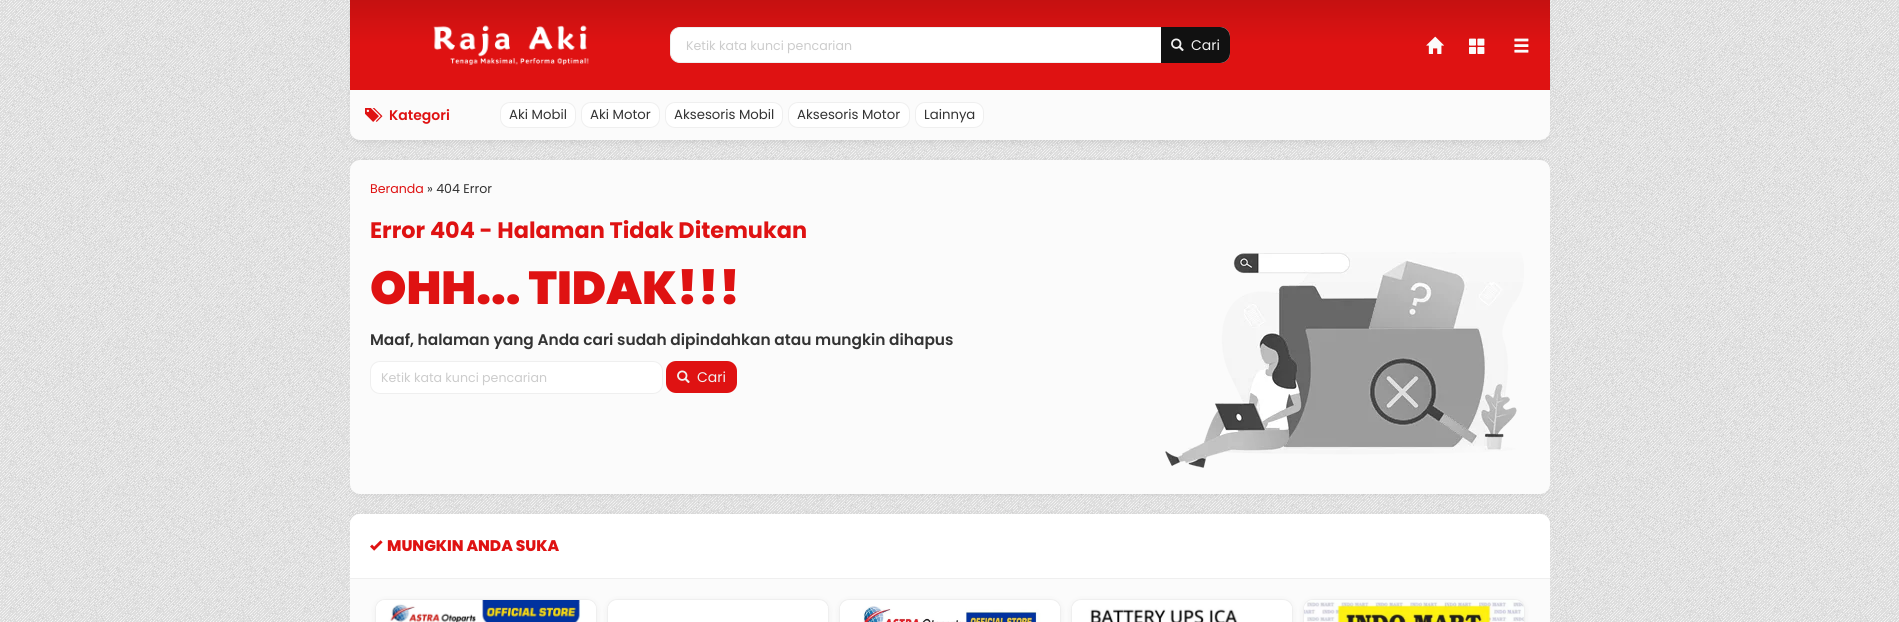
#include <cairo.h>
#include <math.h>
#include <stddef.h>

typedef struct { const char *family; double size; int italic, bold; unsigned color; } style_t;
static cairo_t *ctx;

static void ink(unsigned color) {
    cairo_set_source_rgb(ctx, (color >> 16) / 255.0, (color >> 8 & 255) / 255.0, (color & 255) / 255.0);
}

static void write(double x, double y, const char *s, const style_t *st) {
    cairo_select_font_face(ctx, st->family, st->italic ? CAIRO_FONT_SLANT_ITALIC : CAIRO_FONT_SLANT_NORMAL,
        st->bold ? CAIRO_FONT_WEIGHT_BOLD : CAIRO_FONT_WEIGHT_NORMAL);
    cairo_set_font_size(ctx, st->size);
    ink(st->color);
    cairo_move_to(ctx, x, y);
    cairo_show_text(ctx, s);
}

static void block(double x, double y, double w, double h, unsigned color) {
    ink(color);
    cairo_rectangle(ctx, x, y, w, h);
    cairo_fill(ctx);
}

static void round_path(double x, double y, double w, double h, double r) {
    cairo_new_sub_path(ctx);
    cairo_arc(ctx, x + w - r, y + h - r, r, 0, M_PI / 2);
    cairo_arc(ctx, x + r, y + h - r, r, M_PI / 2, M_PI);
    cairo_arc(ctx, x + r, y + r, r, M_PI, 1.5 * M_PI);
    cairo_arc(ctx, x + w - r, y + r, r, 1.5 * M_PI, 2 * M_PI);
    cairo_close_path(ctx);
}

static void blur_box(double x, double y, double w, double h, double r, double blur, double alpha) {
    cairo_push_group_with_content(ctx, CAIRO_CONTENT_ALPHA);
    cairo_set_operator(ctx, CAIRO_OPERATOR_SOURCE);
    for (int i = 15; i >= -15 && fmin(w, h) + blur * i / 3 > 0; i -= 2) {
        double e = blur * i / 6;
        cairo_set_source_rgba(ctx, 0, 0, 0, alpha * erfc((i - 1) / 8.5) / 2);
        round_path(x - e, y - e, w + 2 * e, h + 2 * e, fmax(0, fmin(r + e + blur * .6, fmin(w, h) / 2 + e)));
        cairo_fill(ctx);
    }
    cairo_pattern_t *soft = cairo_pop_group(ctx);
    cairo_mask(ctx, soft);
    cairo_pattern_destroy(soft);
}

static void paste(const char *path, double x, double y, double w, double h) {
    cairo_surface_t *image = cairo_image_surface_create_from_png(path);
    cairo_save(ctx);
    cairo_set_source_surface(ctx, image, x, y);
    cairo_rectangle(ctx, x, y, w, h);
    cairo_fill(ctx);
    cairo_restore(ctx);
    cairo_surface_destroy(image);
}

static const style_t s1 = {"Poppins", 12.6, 0, 0, 0xcccccc};
static const style_t s2 = {"Poppins", 14, 0, 0, 0xf1f1f1};
static const style_t s3 = {"Poppins SemiBold", 14, 0, 0, 0xdf1212};
static const style_t s4 = {"Poppins", 13.25, 0, 0, 0x333333};
static const style_t s5 = {"Poppins", 12.6, 0, 0, 0xdf1212};
static const style_t s6 = {"Poppins", 12.6, 0, 0, 0x333333};
static const style_t s7 = {"Poppins", 22.4, 0, 1, 0xdf1212};
static const style_t s8 = {"Poppins Black", 46.25, 0, 0, 0xdf1212};
static const style_t s9 = {"Poppins SemiBold", 15.4, 0, 0, 0x333333};
static const style_t s10 = {"Poppins ExtraBold", 15.4, 0, 0, 0xdf1212};

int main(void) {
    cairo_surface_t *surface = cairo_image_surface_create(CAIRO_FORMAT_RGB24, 1899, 622);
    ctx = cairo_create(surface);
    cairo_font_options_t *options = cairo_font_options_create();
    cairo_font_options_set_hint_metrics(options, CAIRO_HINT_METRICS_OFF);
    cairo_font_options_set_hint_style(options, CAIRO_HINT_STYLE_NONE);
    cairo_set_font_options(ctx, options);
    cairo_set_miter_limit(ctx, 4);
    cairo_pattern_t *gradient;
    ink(0xf1f1f1);
    cairo_paint(ctx);
    paste("pic1.png", 0, 0, 1899, 622);
    ink(0x000000);
    blur_box(351, 5, 1198, 138, 9, 3, 0.07);
    ink(0xfbfbfb);
    cairo_new_path(ctx);
    cairo_move_to(ctx, 350, 0);
    cairo_line_to(ctx, 1550, 0);
    cairo_line_to(ctx, 1550, 130);
    cairo_curve_to(ctx, 1550, 135.5, 1545.5, 140, 1540, 140);
    cairo_line_to(ctx, 360, 140);
    cairo_curve_to(ctx, 354.5, 140, 350, 135.5, 350, 130);
    cairo_close_path(ctx);
    cairo_fill(ctx);
    gradient = cairo_pattern_create_linear(950, 0, 950, 90);
    cairo_pattern_add_color_stop_rgba(gradient, 0, 0.773, 0.067, 0.067, 1);
    cairo_pattern_add_color_stop_rgba(gradient, 0.5, 0.875, 0.071, 0.071, 1);
    cairo_pattern_add_color_stop_rgba(gradient, 1, 0.875, 0.071, 0.071, 1);
    cairo_set_source(ctx, gradient);
    cairo_pattern_destroy(gradient);
    cairo_rectangle(ctx, 350, 0, 1200, 90);
    cairo_fill(ctx);
    paste("pic2.png", 433, 25, 156, 40);
    ink(0xffffff);
    round_path(670.5, 27.5, 559, 35, 9.5);
    cairo_fill_preserve(ctx);
    ink(0xefefef);
    cairo_set_line_width(ctx, 1);
    cairo_stroke(ctx);
    write(686, 50, "Ketik kata kunci pencarian", &s1);
    ink(0x111111);
    cairo_new_path(ctx);
    cairo_move_to(ctx, 1161, 27);
    cairo_line_to(ctx, 1220, 27);
    cairo_curve_to(ctx, 1225.5, 27, 1230, 31.5, 1230, 37);
    cairo_line_to(ctx, 1230, 53);
    cairo_curve_to(ctx, 1230, 58.5, 1225.5, 63, 1220, 63);
    cairo_line_to(ctx, 1161, 63);
    cairo_close_path(ctx);
    cairo_fill(ctx);
    paste("pic3.png", 1171, 38, 13, 13);
    write(1191, 50, "Cari", &s2);
    paste("pic4.png", 1426, 36, 18, 18);
    paste("pic5.png", 1469, 38, 16, 16);
    paste("pic6.png", 1514, 38, 15, 15);
    paste("pic7.png", 365, 108, 18, 14);
    write(389, 120, "Kategori", &s3);
    ink(0xffffff);
    round_path(500.5, 102.5, 75, 25, 9.5);
    cairo_fill_preserve(ctx);
    ink(0xefefef);
    cairo_stroke(ctx);
    write(509, 119, "Aki Mobil", &s4);
    ink(0xffffff);
    round_path(581.5, 102.5, 78, 25, 9.5);
    cairo_fill_preserve(ctx);
    ink(0xefefef);
    cairo_stroke(ctx);
    write(590, 119, "Aki Motor", &s4);
    ink(0xffffff);
    round_path(665.5, 102.5, 117, 25, 9.5);
    cairo_fill_preserve(ctx);
    ink(0xefefef);
    cairo_stroke(ctx);
    write(674, 119, "Aksesoris Mobil", &s4);
    ink(0xffffff);
    round_path(788.5, 102.5, 121, 25, 9.5);
    cairo_fill_preserve(ctx);
    ink(0xefefef);
    cairo_stroke(ctx);
    write(797, 119, "Aksesoris Motor", &s4);
    ink(0xffffff);
    round_path(915.5, 102.5, 68, 25, 9.5);
    cairo_fill_preserve(ctx);
    ink(0xefefef);
    cairo_stroke(ctx);
    write(924, 119, "Lainnya", &s4);
    cairo_save(ctx);
    cairo_rectangle(ctx, 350, 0, 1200, 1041);
    cairo_clip(ctx);
    ink(0x000000);
    blur_box(350, 161, 1200, 334, 10, 3, 0.07);
    cairo_restore(ctx);
    ink(0xfbfbfb);
    round_path(350, 160, 1200, 334, 10);
    cairo_fill(ctx);
    write(370, 193, "Beranda", &s5);
    write(427, 193, "» 404 Error", &s6);
    write(370, 238, "Error 404 - Halaman Tidak Ditemukan", &s7);
    write(370, 304, "OHH... TIDAK!!!", &s8);
    paste("pic8.png", 1165, 252, 359, 216);
    write(370, 345, "Maaf, halaman yang Anda cari sudah dipindahkan atau mungkin dihapus", &s9);
    ink(0xffffff);
    round_path(370.5, 361.5, 292, 32, 9.5);
    cairo_fill_preserve(ctx);
    ink(0xefefef);
    cairo_stroke(ctx);
    write(381, 382, "Ketik kata kunci pencarian", &s1);
    ink(0xdf1212);
    round_path(666, 361, 71, 32, 10);
    cairo_fill(ctx);
    paste("pic9.png", 677, 370, 13, 13);
    write(697, 382, "Cari", &s2);
    cairo_save(ctx);
    cairo_rectangle(ctx, 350, 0, 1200, 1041);
    cairo_clip(ctx);
    ink(0x000000);
    blur_box(350, 515, 1200, 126, 10, 3, 0.07);
    cairo_restore(ctx);
    ink(0xfbfbfb);
    round_path(350, 514, 1200, 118, 10);
    cairo_fill(ctx);
    ink(0xffffff);
    cairo_new_path(ctx);
    cairo_move_to(ctx, 360, 514);
    cairo_line_to(ctx, 1540, 514);
    cairo_curve_to(ctx, 1545.5, 514, 1550, 518.5, 1550, 524);
    cairo_line_to(ctx, 1550, 579);
    cairo_line_to(ctx, 350, 579);
    cairo_line_to(ctx, 350, 524);
    cairo_curve_to(ctx, 350, 518.5, 354.5, 514, 360, 514);
    cairo_close_path(ctx);
    cairo_fill(ctx);
    block(350, 578, 1200, 1, 0xefefef);
    paste("pic10.png", 370, 540, 13, 11);
    write(387, 551, "MUNGKIN ANDA SUKA", &s10);
    ink(0x000000);
    blur_box(375, 600, 222, 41, 10, 3, 0.05);
    ink(0xffffff);
    round_path(375.5, 599.5, 221, 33, 9.5);
    cairo_fill_preserve(ctx);
    ink(0xefefef);
    cairo_stroke(ctx);
    paste("pic11.png", 376, 600, 220, 22);
    ink(0x000000);
    blur_box(607, 600, 222, 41, 10, 3, 0.05);
    ink(0xffffff);
    round_path(607.5, 599.5, 221, 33, 9.5);
    cairo_fill_preserve(ctx);
    ink(0xefefef);
    cairo_stroke(ctx);
    paste("pic12.png", 608, 606, 220, 1);
    ink(0x000000);
    blur_box(839, 600, 222, 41, 10, 3, 0.05);
    ink(0xffffff);
    round_path(839.5, 599.5, 221, 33, 9.5);
    cairo_fill_preserve(ctx);
    ink(0xefefef);
    cairo_stroke(ctx);
    paste("pic13.png", 840, 606, 220, 16);
    ink(0x000000);
    blur_box(1071, 600, 222, 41, 10, 3, 0.05);
    ink(0xffffff);
    round_path(1071.5, 599.5, 221, 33, 9.5);
    cairo_fill_preserve(ctx);
    ink(0xefefef);
    cairo_stroke(ctx);
    paste("pic14.png", 1072, 606, 220, 16);
    ink(0x000000);
    blur_box(1303, 600, 222, 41, 10, 3, 0.05);
    ink(0xffffff);
    round_path(1303.5, 599.5, 221, 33, 9.5);
    cairo_fill_preserve(ctx);
    ink(0xefefef);
    cairo_stroke(ctx);
    paste("pic15.png", 1304, 600, 220, 22);
    cairo_surface_write_to_png(surface, "screenshot.png");
    cairo_font_options_destroy(options);
    cairo_destroy(ctx);
    cairo_surface_destroy(surface);
    return 0;
}
